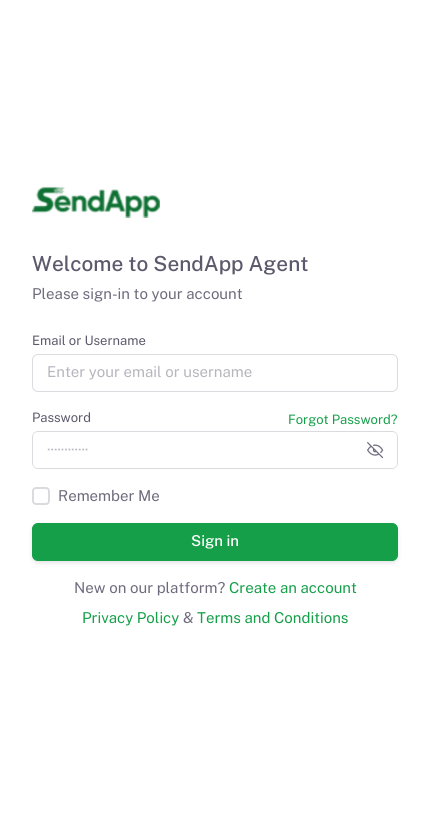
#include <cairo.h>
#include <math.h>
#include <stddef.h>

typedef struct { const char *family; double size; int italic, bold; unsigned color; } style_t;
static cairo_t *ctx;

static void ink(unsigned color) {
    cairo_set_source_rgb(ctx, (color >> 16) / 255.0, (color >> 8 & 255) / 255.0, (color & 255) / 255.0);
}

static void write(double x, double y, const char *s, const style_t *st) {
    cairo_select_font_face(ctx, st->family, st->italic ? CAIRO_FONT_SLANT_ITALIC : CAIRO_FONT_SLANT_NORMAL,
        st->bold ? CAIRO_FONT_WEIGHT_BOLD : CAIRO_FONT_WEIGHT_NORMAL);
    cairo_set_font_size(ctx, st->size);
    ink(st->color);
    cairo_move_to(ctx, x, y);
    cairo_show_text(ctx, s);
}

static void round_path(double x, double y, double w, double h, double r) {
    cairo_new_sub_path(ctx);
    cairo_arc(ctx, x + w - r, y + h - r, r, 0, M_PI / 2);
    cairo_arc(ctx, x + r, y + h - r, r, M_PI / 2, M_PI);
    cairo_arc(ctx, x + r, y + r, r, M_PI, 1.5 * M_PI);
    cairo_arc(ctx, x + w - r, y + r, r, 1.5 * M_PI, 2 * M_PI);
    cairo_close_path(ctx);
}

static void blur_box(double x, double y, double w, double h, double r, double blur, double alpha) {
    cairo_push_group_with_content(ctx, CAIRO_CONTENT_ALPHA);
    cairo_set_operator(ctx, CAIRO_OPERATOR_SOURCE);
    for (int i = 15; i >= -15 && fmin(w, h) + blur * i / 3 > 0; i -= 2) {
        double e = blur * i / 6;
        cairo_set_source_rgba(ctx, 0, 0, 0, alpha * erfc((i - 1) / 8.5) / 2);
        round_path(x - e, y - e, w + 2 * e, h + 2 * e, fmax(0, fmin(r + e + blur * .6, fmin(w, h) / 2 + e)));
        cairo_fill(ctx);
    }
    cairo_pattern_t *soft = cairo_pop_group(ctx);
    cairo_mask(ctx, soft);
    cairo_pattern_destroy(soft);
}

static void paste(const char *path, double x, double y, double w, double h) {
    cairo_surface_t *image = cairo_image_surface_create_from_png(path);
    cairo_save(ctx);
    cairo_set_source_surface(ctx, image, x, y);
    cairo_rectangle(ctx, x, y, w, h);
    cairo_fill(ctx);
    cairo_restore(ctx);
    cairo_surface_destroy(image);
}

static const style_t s1 = {"Public Sans Medium", 20.8, 0, 0, 0x5d596c};
static const style_t s2 = {"Public Sans", 15, 0, 0, 0x6f6b7d};
static const style_t s3 = {"Public Sans", 13, 0, 0, 0x5d596c};
static const style_t s4 = {"Public Sans", 15, 0, 0, 0xb7b5be};
static const style_t s5 = {"Public Sans", 13, 0, 0, 0x159f49};
static const style_t s6 = {"Public Sans Medium", 15, 0, 0, 0xffffff};
static const style_t s7 = {"Public Sans", 15, 0, 0, 0x159f49};

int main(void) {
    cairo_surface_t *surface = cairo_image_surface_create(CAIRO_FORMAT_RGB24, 430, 815);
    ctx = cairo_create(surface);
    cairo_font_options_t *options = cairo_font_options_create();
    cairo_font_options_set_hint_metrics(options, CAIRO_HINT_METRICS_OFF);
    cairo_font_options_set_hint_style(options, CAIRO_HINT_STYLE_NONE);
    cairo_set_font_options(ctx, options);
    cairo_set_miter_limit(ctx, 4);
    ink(0xffffff);
    cairo_paint(ctx);
    paste("pic1.png", 32, 186, 128, 32);
    write(32, 271, "Welcome to SendApp Agent", &s1);
    write(32, 299, "Please sign-in to your account", &s2);
    write(32, 345, "Email or Username", &s3);
    round_path(32.5, 354.5, 365, 37, 5.5);
    ink(0xdbdade);
    cairo_set_line_width(ctx, 1);
    cairo_stroke(ctx);
    write(47, 377, "Enter your email or username", &s4);
    write(32, 422, "Password", &s3);
    write(288, 424, "Forgot Password?", &s5);
    ink(0xdbdade);
    cairo_set_fill_rule(ctx, CAIRO_FILL_RULE_EVEN_ODD);
    cairo_new_path(ctx);
    cairo_move_to(ctx, 353, 431);
    cairo_line_to(ctx, 392, 431);
    cairo_curve_to(ctx, 395, 431, 398, 434, 398, 437);
    cairo_line_to(ctx, 398, 463);
    cairo_curve_to(ctx, 398, 466, 395, 469, 392, 469);
    cairo_line_to(ctx, 353, 469);
    cairo_close_path(ctx);
    cairo_move_to(ctx, 353, 432);
    cairo_line_to(ctx, 392, 432);
    cairo_curve_to(ctx, 395, 432, 397, 434, 397, 437);
    cairo_line_to(ctx, 397, 463);
    cairo_curve_to(ctx, 397, 466, 395, 468, 392, 468);
    cairo_line_to(ctx, 353, 468);
    cairo_close_path(ctx);
    cairo_fill(ctx);
    cairo_new_path(ctx);
    cairo_move_to(ctx, 38, 431);
    cairo_line_to(ctx, 354, 431);
    cairo_line_to(ctx, 354, 469);
    cairo_line_to(ctx, 38, 469);
    cairo_curve_to(ctx, 35, 469, 32, 466, 32, 463);
    cairo_line_to(ctx, 32, 437);
    cairo_curve_to(ctx, 32, 434, 35, 431, 38, 431);
    cairo_close_path(ctx);
    cairo_move_to(ctx, 38, 432);
    cairo_line_to(ctx, 354, 432);
    cairo_line_to(ctx, 354, 468);
    cairo_line_to(ctx, 38, 468);
    cairo_curve_to(ctx, 35, 468, 33, 466, 33, 463);
    cairo_line_to(ctx, 33, 437);
    cairo_curve_to(ctx, 33, 434, 35, 432, 38, 432);
    cairo_close_path(ctx);
    cairo_fill(ctx);
    write(47, 455, "············", &s4);
    paste("pic2.png", 367, 442, 17, 17);
    round_path(33, 488, 16, 16, 3);
    ink(0xdbdade);
    cairo_set_line_width(ctx, 2);
    cairo_stroke(ctx);
    write(58, 501, "Remember Me", &s2);
    ink(0xa5a3ae);
    blur_box(32, 525, 366, 38, 6, 2, 0.3);
    ink(0x159f49);
    round_path(32.5, 523.5, 365, 37, 5.5);
    cairo_fill_preserve(ctx);
    cairo_set_line_width(ctx, 1);
    cairo_stroke(ctx);
    write(191, 546, "Sign in", &s6);
    write(74, 593, "New on our platform?", &s2);
    write(229, 593, "Create an account", &s7);
    write(82, 623, "Privacy Policy", &s7);
    write(183, 623, "&", &s2);
    write(197, 623, "Terms and Conditions", &s7);
    cairo_surface_write_to_png(surface, "screenshot.png");
    cairo_font_options_destroy(options);
    cairo_destroy(ctx);
    cairo_surface_destroy(surface);
    return 0;
}
